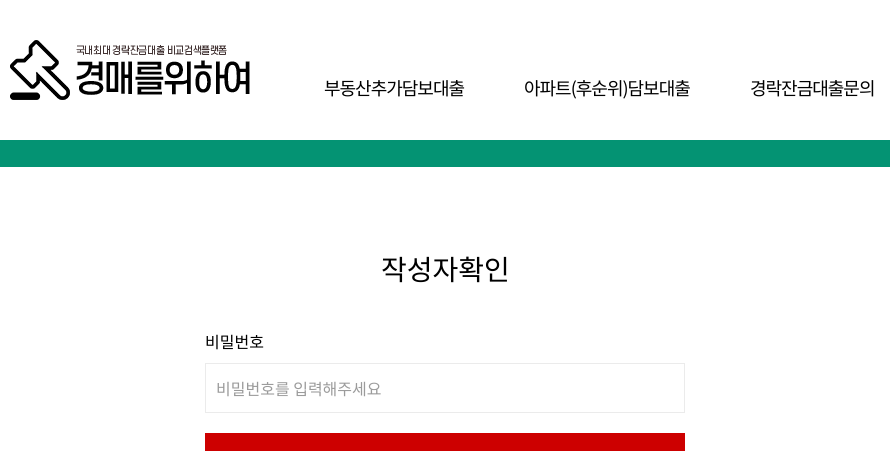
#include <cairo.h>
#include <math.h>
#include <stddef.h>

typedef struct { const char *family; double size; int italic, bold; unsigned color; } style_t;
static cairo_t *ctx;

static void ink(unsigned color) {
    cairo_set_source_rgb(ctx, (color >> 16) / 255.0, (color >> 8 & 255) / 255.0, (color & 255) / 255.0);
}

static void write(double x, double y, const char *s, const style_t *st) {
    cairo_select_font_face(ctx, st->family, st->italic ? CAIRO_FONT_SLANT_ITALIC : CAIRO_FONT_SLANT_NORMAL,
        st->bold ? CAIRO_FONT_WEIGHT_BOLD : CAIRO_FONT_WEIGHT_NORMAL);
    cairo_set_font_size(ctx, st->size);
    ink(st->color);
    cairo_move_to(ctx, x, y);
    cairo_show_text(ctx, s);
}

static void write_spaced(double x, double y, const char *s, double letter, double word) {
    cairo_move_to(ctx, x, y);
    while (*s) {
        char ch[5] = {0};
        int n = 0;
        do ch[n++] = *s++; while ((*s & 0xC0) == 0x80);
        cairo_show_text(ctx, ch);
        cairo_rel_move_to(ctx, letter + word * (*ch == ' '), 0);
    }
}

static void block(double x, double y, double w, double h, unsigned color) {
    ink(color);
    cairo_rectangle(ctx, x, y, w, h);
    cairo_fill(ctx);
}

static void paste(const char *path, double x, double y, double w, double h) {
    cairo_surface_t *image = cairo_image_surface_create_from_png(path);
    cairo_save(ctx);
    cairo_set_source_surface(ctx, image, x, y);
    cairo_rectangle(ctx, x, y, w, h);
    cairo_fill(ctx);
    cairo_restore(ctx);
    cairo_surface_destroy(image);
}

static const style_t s1 = {"Noto Sans KR Thin", 28, 0, 0, 0x000000};
static const style_t s2 = {"Noto Sans KR Thin", 16, 0, 0, 0x000000};
static const style_t s3 = {"Noto Sans KR Thin", 16, 0, 0, 0x9b9b9b};

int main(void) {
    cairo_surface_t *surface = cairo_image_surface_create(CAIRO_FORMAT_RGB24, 890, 451);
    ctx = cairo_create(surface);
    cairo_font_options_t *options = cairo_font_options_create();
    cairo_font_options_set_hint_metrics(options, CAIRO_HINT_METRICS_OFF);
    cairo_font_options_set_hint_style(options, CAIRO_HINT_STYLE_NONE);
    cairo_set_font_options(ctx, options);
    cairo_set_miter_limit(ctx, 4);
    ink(0xffffff);
    cairo_paint(ctx);
    paste("pic1.png", 10, 40, 240, 60);
    cairo_select_font_face(ctx, "Noto Sans KR Thin", CAIRO_FONT_SLANT_NORMAL, CAIRO_FONT_WEIGHT_NORMAL);
    cairo_set_font_size(ctx, 18);
    ink(0x000000);
    write_spaced(324, 95, "부동산추가담보대출", -1, 0);
    write_spaced(524, 95, "아파트(후순위)담보대출", -1, 0);
    write_spaced(750, 95, "경락잔금대출문의", -1, 0);
    block(0, 140, 890, 27, 0x049373);
    write(381, 280, "작성자확인", &s1);
    write(205, 348, "비밀번호", &s2);
    cairo_rectangle(ctx, 205.5, 363.5, 479, 49);
    ink(0xebebeb);
    cairo_set_line_width(ctx, 1);
    cairo_stroke(ctx);
    write(216, 395, "비밀번호를 입력해주세요", &s3);
    block(205, 433, 480, 18, 0xcd0000);
    cairo_surface_write_to_png(surface, "screenshot.png");
    cairo_font_options_destroy(options);
    cairo_destroy(ctx);
    cairo_surface_destroy(surface);
    return 0;
}
